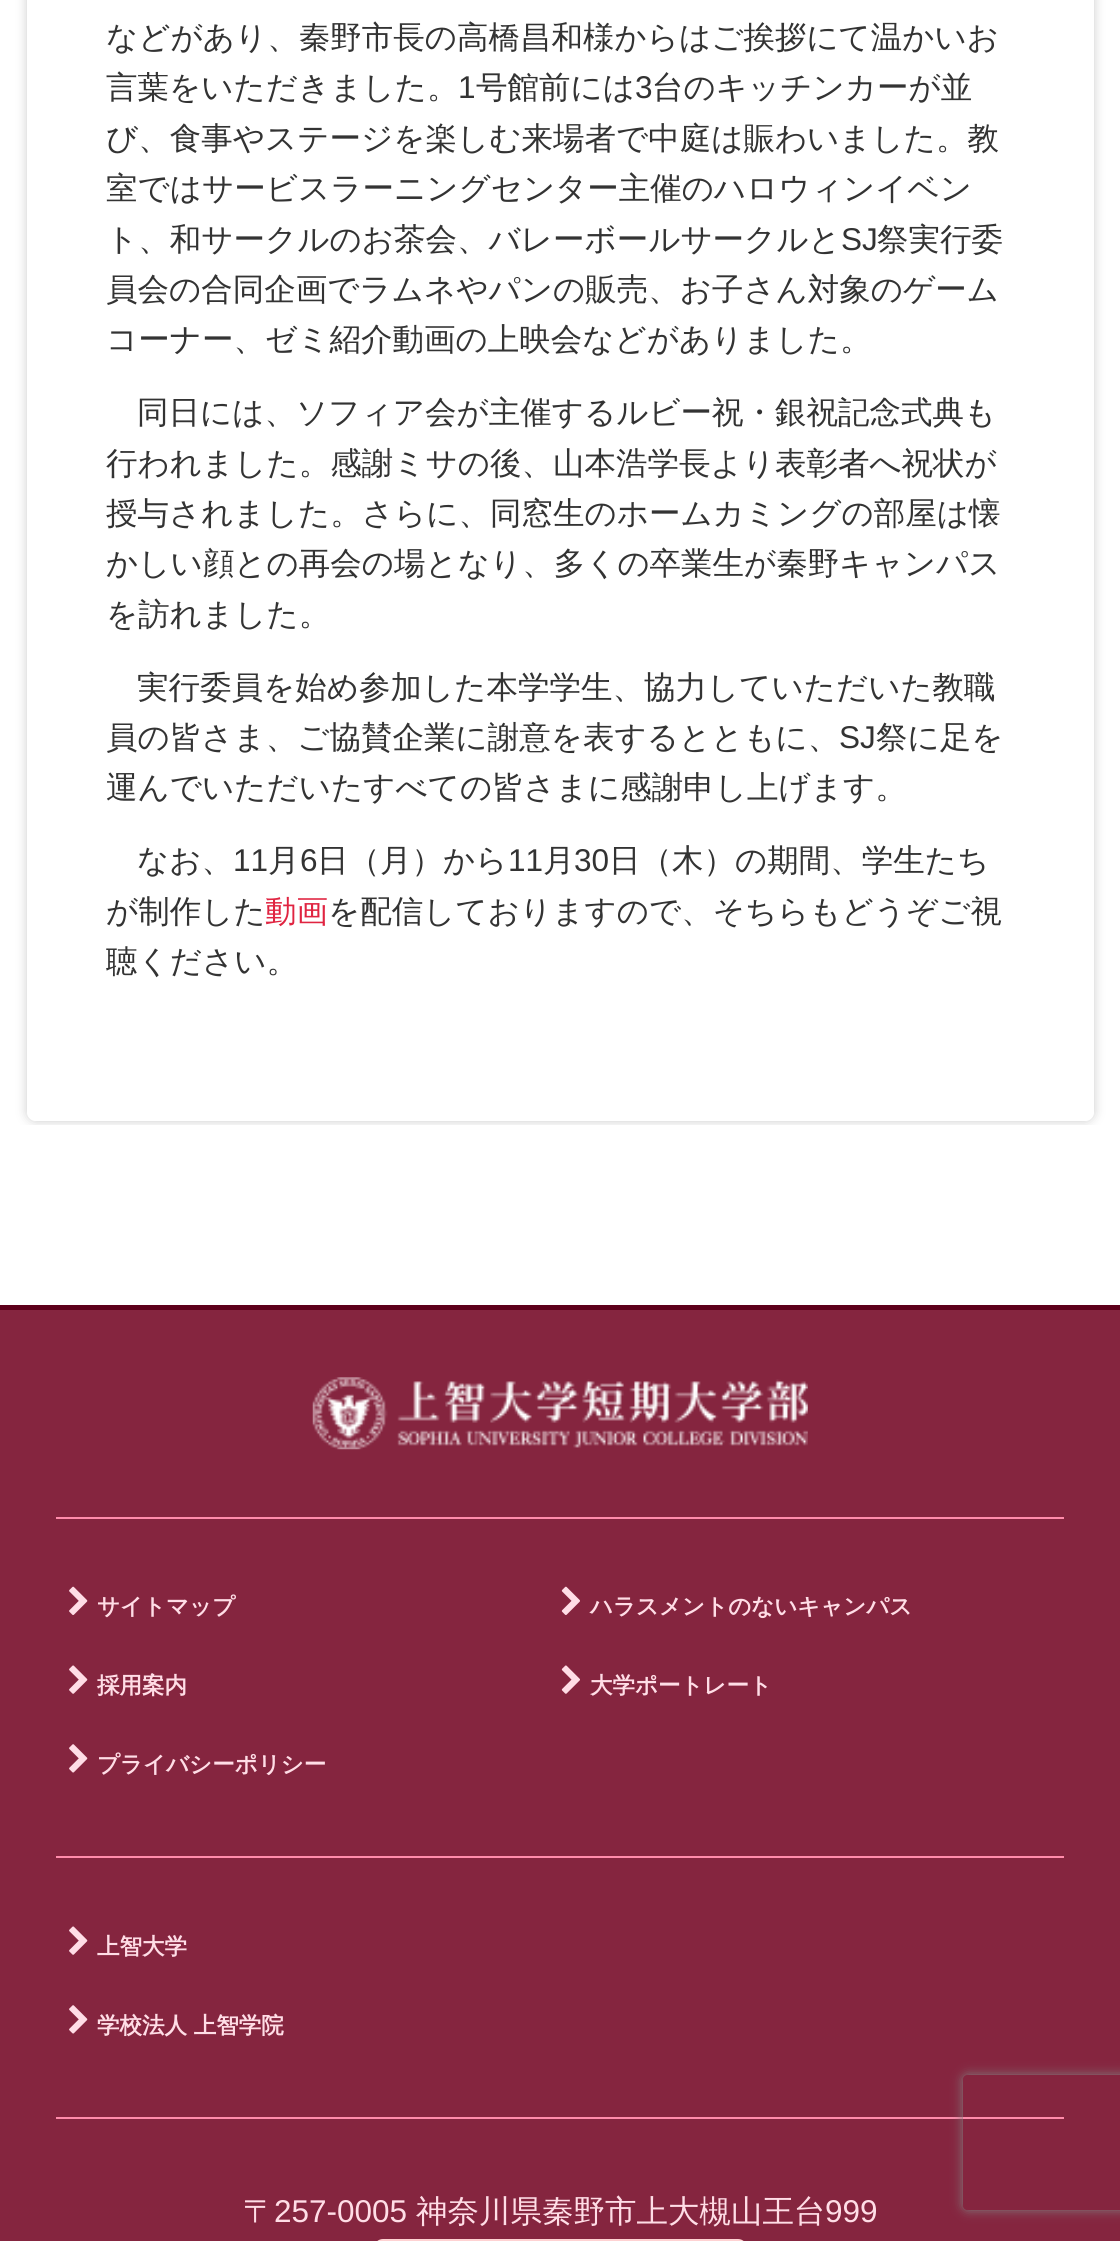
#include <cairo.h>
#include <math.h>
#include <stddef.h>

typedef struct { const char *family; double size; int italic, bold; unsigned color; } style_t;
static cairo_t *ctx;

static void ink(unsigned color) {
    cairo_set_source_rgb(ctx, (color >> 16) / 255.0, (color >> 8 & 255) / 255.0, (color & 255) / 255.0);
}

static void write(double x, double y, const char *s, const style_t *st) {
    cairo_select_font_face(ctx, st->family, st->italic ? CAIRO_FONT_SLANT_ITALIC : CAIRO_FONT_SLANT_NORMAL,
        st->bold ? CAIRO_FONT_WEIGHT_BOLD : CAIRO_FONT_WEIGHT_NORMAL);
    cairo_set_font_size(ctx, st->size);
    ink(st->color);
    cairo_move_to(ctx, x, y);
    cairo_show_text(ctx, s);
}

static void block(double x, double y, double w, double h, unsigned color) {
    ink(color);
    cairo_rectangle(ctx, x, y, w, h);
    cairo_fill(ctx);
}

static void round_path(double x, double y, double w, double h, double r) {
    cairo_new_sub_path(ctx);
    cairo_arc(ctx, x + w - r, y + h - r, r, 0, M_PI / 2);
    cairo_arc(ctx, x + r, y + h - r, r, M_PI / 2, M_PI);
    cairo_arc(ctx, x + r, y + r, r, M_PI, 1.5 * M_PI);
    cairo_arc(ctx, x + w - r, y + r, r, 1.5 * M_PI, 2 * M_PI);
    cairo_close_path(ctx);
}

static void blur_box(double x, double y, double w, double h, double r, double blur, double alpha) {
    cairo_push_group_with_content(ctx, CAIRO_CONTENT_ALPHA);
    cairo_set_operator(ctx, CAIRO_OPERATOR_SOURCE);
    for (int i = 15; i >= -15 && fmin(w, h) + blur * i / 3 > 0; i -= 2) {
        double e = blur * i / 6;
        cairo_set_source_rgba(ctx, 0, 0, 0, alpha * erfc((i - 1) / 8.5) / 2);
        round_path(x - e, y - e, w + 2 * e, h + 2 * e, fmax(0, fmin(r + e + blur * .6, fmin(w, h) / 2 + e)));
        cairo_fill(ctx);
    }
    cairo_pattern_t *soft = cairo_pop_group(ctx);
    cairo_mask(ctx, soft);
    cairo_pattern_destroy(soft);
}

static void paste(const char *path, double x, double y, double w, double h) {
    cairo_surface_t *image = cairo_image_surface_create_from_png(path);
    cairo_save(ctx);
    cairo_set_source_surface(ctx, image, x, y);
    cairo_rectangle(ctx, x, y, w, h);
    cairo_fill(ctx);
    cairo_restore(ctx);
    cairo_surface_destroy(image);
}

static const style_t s1 = {"WenQuanYi Zen Hei Medium", 31.5, 0, 0, 0x333333};
static const style_t s2 = {"Liberation Sans", 31.5, 0, 0, 0x333333};
static const style_t s3 = {"WenQuanYi Zen Hei Medium", 31.5, 0, 0, 0xe02441};
static const style_t s4 = {"WenQuanYi Zen Hei", 22.5, 0, 1, 0xffdde6};
static const style_t s5 = {"WenQuanYi Zen Hei Medium", 31.5, 0, 0, 0xffdde6};
static const style_t s6 = {"Liberation Sans", 31.5, 0, 0, 0xffdde6};

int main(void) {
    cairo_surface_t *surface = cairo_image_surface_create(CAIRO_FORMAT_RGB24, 1120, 2241);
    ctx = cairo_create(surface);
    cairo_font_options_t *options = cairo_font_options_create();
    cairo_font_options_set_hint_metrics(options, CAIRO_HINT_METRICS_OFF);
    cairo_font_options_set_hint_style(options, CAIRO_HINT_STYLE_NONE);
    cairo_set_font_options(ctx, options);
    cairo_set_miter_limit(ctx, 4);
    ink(0xffffff);
    cairo_paint(ctx);
    cairo_save(ctx);
    cairo_rectangle(ctx, 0, 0, 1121, 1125);
    cairo_clip(ctx);
    cairo_set_fill_rule(ctx, CAIRO_FILL_RULE_EVEN_ODD);
    cairo_new_path(ctx);
    cairo_move_to(ctx, 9, 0);
    cairo_line_to(ctx, 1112, 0);
    cairo_line_to(ctx, 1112, 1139);
    cairo_line_to(ctx, 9, 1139);
    cairo_close_path(ctx);
    cairo_move_to(ctx, 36, -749);
    cairo_line_to(ctx, 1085, -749);
    cairo_curve_to(ctx, 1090, -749, 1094, -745, 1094, -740);
    cairo_line_to(ctx, 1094, 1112);
    cairo_curve_to(ctx, 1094, 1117, 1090, 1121, 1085, 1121);
    cairo_line_to(ctx, 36, 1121);
    cairo_curve_to(ctx, 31, 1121, 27, 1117, 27, 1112);
    cairo_line_to(ctx, 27, -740);
    cairo_curve_to(ctx, 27, -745, 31, -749, 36, -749);
    cairo_close_path(ctx);
    cairo_clip(ctx);
    ink(0xcccccc);
    blur_box(27, -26, 1067, 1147, 9, 5.5, 1);
    cairo_restore(ctx);
    write(106, 48, "などがあり、秦野市長の高橋昌和様からはご挨拶にて温かいお", &s1);
    write(106, 98, "言葉をいただきました。", &s1);
    write(458, 98, "1", &s2);
    write(476, 98, "号館前には", &s1);
    write(635, 98, "3", &s2);
    write(652, 98, "台のキッチンカーが並", &s1);
    write(106, 149, "び、食事やステージを楽しむ来場者で中庭は賑わいました。教", &s1);
    write(106, 199, "室ではサービスラーニングセンター主催のハロウィンイベン", &s1);
    write(106, 250, "ト、和サークルのお茶会、バレーボールサークルと", &s1);
    write(841, 250, "SJ", &s2);
    write(877, 250, "祭実行委", &s1);
    write(106, 300, "員会の合同企画でラムネやパンの販売、お子さん対象のゲーム", &s1);
    write(106, 350, "コーナー、ゼミ紹介動画の上映会などがありました。", &s1);
    write(137, 423, "同日には、ソフィア会が主催するルビー祝・銀祝記念式典も", &s1);
    write(106, 474, "行われました。感謝ミサの後、山本浩学長より表彰者へ祝状が", &s1);
    write(106, 524, "授与されました。さらに、同窓生のホームカミングの部屋は懐", &s1);
    write(106, 574, "かしい顔との再会の場となり、多くの卒業生が秦野キャンパス", &s1);
    write(106, 625, "を訪れました。", &s1);
    write(137, 698, "実行委員を始め参加した本学学生、協力していただいた教職", &s1);
    write(106, 748, "員の皆さま、ご協賛企業に謝意を表するとともに、", &s1);
    write(839, 748, "SJ", &s2);
    write(876, 748, "祭に足を", &s1);
    write(106, 798, "運んでいただいたすべての皆さまに感謝申し上げます。", &s1);
    write(137, 871, "なお、", &s1);
    write(233, 871, "11", &s2);
    write(268, 871, "月", &s1);
    write(300, 871, "6", &s2);
    write(317, 871, "日（月）から", &s1);
    write(508, 871, "11", &s2);
    write(543, 871, "月", &s1);
    write(574, 871, "30", &s2);
    write(609, 871, "日（木）の期間、学生たち", &s1);
    write(106, 922, "が制作した", &s1);
    write(265, 922, "動画", &s3);
    write(328, 922, "を配信しておりますので、そちらもどうぞご視", &s1);
    write(106, 972, "聴ください。", &s1);
    block(0, 1310, 1120, 931, 0x85253f);
    block(0, 1305, 1120, 5, 0x5d001b);
    paste("pic1.png", 312, 1377, 496, 73);
    block(56, 1517, 1008, 2, 0xff8cab);
    paste("pic2.png", 69, 1586, 19, 29);
    write(97, 1614, "サイトマップ", &s4);
    paste("pic3.png", 561, 1586, 19, 29);
    write(590, 1614, "ハラスメントのないキャンパス", &s4);
    paste("pic4.png", 69, 1665, 19, 29);
    write(97, 1693, "採用案内", &s4);
    paste("pic5.png", 561, 1665, 19, 29);
    write(590, 1693, "大学ポートレート", &s4);
    paste("pic6.png", 69, 1744, 19, 29);
    write(97, 1772, "プライバシーポリシー", &s4);
    block(56, 1856, 1008, 2, 0xff8cab);
    paste("pic4.png", 69, 1926, 19, 29);
    write(97, 1954, "上智大学", &s4);
    paste("pic6.png", 69, 2005, 19, 29);
    write(97, 2033, "学校法人 上智学院", &s4);
    block(56, 2117, 1008, 2, 0xff8cab);
    write(243, 2222, "〒", &s5);
    write(274, 2222, "257-0005", &s6);
    write(416, 2222, "神奈川県秦野市上大槻山王台", &s5);
    write(825, 2222, "999", &s6);
    round_path(375, 2240, 371, 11, 8);
    ink(0xffd2d2);
    cairo_stroke(ctx);
    cairo_save(ctx);
    cairo_set_fill_rule(ctx, CAIRO_FILL_RULE_EVEN_ODD);
    cairo_new_path(ctx);
    cairo_move_to(ctx, 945, 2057);
    cairo_line_to(ctx, 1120, 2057);
    cairo_line_to(ctx, 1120, 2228);
    cairo_line_to(ctx, 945, 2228);
    cairo_close_path(ctx);
    cairo_move_to(ctx, 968, 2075);
    cairo_line_to(ctx, 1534, 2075);
    cairo_curve_to(ctx, 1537, 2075, 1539, 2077, 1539, 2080);
    cairo_line_to(ctx, 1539, 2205);
    cairo_curve_to(ctx, 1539, 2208, 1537, 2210, 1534, 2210);
    cairo_line_to(ctx, 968, 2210);
    cairo_curve_to(ctx, 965, 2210, 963, 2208, 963, 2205);
    cairo_line_to(ctx, 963, 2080);
    cairo_curve_to(ctx, 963, 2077, 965, 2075, 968, 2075);
    cairo_close_path(ctx);
    cairo_clip(ctx);
    ink(0x808080);
    blur_box(963, 2075, 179, 135, 5, 5.5, 1);
    cairo_restore(ctx);
    cairo_surface_write_to_png(surface, "screenshot.png");
    cairo_font_options_destroy(options);
    cairo_destroy(ctx);
    cairo_surface_destroy(surface);
    return 0;
}
